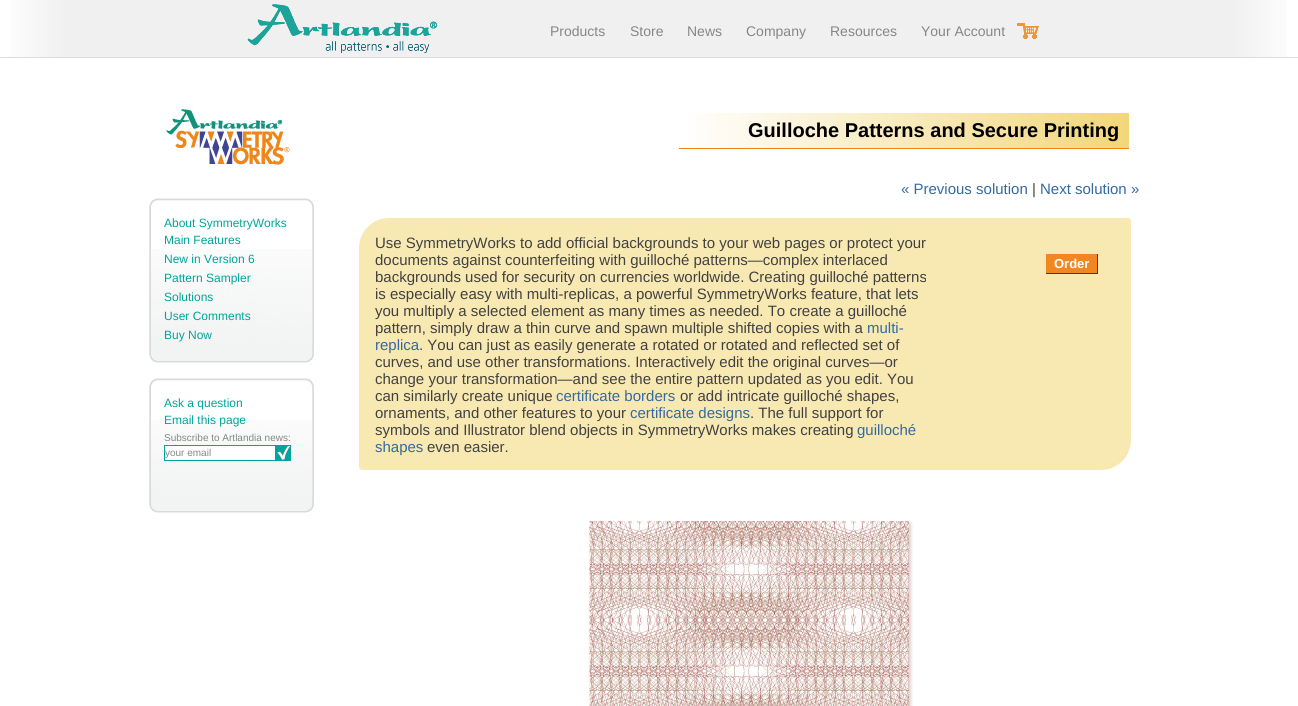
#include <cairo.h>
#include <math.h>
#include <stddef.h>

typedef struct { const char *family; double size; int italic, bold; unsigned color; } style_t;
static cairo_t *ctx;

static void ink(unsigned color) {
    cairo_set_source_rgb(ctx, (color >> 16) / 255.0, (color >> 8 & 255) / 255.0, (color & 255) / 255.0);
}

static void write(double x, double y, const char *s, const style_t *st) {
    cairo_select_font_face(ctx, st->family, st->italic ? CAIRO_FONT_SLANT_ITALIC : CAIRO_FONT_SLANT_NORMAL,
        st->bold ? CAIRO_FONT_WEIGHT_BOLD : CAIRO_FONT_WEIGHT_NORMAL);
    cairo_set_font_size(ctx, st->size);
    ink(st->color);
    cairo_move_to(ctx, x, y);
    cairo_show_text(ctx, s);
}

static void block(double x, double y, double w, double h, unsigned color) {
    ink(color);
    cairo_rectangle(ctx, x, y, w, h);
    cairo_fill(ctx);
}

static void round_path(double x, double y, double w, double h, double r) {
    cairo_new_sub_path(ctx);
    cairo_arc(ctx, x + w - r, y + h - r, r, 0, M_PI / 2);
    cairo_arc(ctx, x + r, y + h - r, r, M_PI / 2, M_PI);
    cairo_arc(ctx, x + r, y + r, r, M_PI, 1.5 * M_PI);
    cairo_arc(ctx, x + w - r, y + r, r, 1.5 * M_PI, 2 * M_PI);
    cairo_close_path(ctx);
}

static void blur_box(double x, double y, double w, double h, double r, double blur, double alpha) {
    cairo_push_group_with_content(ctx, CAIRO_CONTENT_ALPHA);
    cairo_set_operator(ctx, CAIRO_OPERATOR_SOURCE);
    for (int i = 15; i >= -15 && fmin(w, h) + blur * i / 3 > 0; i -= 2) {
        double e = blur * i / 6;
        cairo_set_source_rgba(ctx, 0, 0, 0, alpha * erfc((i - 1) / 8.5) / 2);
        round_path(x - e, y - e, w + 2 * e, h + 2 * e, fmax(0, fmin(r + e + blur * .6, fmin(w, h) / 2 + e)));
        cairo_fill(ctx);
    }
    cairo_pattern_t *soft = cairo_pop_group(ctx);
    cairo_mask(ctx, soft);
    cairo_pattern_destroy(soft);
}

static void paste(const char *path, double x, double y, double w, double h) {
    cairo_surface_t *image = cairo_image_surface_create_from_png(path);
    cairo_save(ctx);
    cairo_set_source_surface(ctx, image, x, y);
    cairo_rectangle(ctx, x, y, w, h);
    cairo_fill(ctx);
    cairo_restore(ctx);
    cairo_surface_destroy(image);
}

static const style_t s1 = {"Liberation Sans", 14, 0, 0, 0x848688};
static const style_t s2 = {"Liberation Sans", 20, 0, 1, 0x000000};
static const style_t s3 = {"Liberation Sans", 12, 0, 0, 0x00a49b};
static const style_t s4 = {"Liberation Sans", 10, 0, 0, 0x848688};
static const style_t s5 = {"Liberation Sans", 15, 0, 0, 0x336aa0};
static const style_t s6 = {"Liberation Sans", 15, 0, 0, 0x414142};
static const style_t s7 = {"Liberation Sans", 13, 0, 1, 0xffffff};

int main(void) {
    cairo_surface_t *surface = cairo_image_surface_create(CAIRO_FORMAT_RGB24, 1298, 706);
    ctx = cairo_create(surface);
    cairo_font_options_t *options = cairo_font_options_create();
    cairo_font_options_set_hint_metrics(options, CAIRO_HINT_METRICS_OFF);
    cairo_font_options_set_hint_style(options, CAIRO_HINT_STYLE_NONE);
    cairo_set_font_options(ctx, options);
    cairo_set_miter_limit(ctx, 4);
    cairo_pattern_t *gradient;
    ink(0xffffff);
    cairo_paint(ctx);
    gradient = cairo_pattern_create_linear(0, 29, 1298, 28);
    cairo_pattern_add_color_stop_rgba(gradient, 0, 1, 1, 1, 1);
    cairo_pattern_add_color_stop_rgba(gradient, 0.05, 0.941, 0.941, 0.941, 1);
    cairo_pattern_add_color_stop_rgba(gradient, 0.95, 0.941, 0.941, 0.941, 1);
    cairo_pattern_add_color_stop_rgba(gradient, 1, 1, 1, 1, 1);
    cairo_set_source(ctx, gradient);
    cairo_pattern_destroy(gradient);
    cairo_rectangle(ctx, 11, 0, 1276, 57);
    cairo_fill(ctx);
    block(0, 57, 1298, 1, 0xdddddd);
    paste("pic1.png", 247, 4, 190, 49);
    write(550, 36, "Products", &s1);
    write(630, 36, "Store", &s1);
    write(687, 36, "News", &s1);
    write(746, 36, "Company", &s1);
    write(830, 36, "Resources", &s1);
    write(921, 36, "Your Account", &s1);
    paste("pic2.png", 1017, 23, 22, 16);
    gradient = cairo_pattern_create_linear(679, 131, 1129, 131);
    cairo_pattern_add_color_stop_rgba(gradient, 0, 1, 1, 1, 1);
    cairo_pattern_add_color_stop_rgba(gradient, 1, 0.949, 0.839, 0.482, 1);
    cairo_set_source(ctx, gradient);
    cairo_pattern_destroy(gradient);
    cairo_rectangle(ctx, 688, 113, 441, 35);
    cairo_fill(ctx);
    block(679, 148, 450, 1, 0xf38517);
    write(748, 137, "Guilloche Patterns and Secure Printing", &s2);
    paste("pic3.png", 166, 109, 124, 56);
    paste("pic4.png", 149, 198, 165, 12);
    paste("pic5.png", 149, 210, 165, 136);
    write(164, 227, "About SymmetryWorks", &s3);
    write(164, 244, "Main Features", &s3);
    paste("pic6.png", 151, 249, 161, 97);
    write(164, 263, "New in Version 6", &s3);
    write(164, 282, "Pattern Sampler", &s3);
    write(164, 301, "Solutions", &s3);
    write(164, 320, "User Comments", &s3);
    write(164, 339, "Buy Now", &s3);
    paste("pic7.png", 149, 346, 165, 17);
    paste("pic4.png", 149, 378, 165, 12);
    paste("pic8.png", 149, 390, 165, 106);
    write(164, 407, "Ask a question", &s3);
    paste("pic10.png", 151, 420, 161, 76);
    write(164, 424, "Email this page", &s3);
    write(164, 441, "Subscribe to Artlandia news:", &s4);
    ink(0xffffff);
    cairo_rectangle(ctx, 164.5, 445.5, 111, 15);
    cairo_fill_preserve(ctx);
    ink(0x00a49b);
    cairo_set_line_width(ctx, 1);
    cairo_stroke(ctx);
    write(165, 456, "your email", &s4);
    block(276, 445, 15, 16, 0x00a49b);
    paste("pic9.png", 277, 446, 13, 14);
    paste("pic7.png", 149, 496, 165, 17);
    write(901, 194, "« Previous solution", &s5);
    write(1032, 194, "|", &s6);
    write(1040, 194, "Next solution »", &s5);
    ink(0xf8e8b2);
    cairo_new_path(ctx);
    cairo_move_to(ctx, 389, 218);
    cairo_line_to(ctx, 1128, 218);
    cairo_curve_to(ctx, 1129.5, 218, 1131, 219.5, 1131, 221);
    cairo_line_to(ctx, 1131, 440);
    cairo_curve_to(ctx, 1131, 456.5, 1117.5, 470, 1101, 470);
    cairo_line_to(ctx, 362, 470);
    cairo_curve_to(ctx, 360.5, 470, 359, 468.5, 359, 467);
    cairo_line_to(ctx, 359, 248);
    cairo_curve_to(ctx, 359, 231.5, 372.5, 218, 389, 218);
    cairo_close_path(ctx);
    cairo_fill(ctx);
    write(375, 248, "Use SymmetryWorks to add official backgrounds to your web pages or protect your", &s6);
    write(375, 265, "documents against counterfeiting with guilloché patterns—complex interlaced", &s6);
    write(375, 282, "backgrounds used for security on currencies worldwide. Creating guilloché patterns", &s6);
    write(375, 299, "is especially easy with multi-replicas, a powerful SymmetryWorks feature, that lets", &s6);
    write(375, 316, "you multiply a selected element as many times as needed. To create a guilloché", &s6);
    write(375, 333, "pattern, simply draw a thin curve and spawn multiple shifted copies with a", &s6);
    write(867, 333, "multi-", &s5);
    write(375, 350, "replica", &s5);
    write(419, 350, ". You can just as easily generate a rotated or rotated and reflected set of", &s6);
    write(375, 367, "curves, and use other transformations. Interactively edit the original curves—or", &s6);
    write(375, 384, "change your transformation—and see the entire pattern updated as you edit. You", &s6);
    write(375, 401, "can similarly create unique", &s6);
    write(556, 401, "certificate borders", &s5);
    write(680, 401, "or add intricate guilloché shapes,", &s6);
    write(375, 418, "ornaments, and other features to your", &s6);
    write(630, 418, "certificate designs", &s5);
    write(750, 418, ". The full support for", &s6);
    write(375, 435, "symbols and Illustrator blend objects in SymmetryWorks makes creating", &s6);
    write(857, 435, "guilloché", &s5);
    write(375, 452, "shapes", &s5);
    write(427, 452, "even easier.", &s6);
    block(1097, 254, 1, 20, 0x144b5e);
    block(1046, 273, 52, 1, 0x144b5e);
    block(1046, 254, 51, 19, 0xf28621);
    write(1054, 268, "Order", &s7);
    ink(0xe2cfcf);
    blur_box(591, 523, 320, 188, 0, 1.5, 1);
    paste("pic11.png", 589, 521, 320, 185);
    cairo_surface_write_to_png(surface, "screenshot.png");
    cairo_font_options_destroy(options);
    cairo_destroy(ctx);
    cairo_surface_destroy(surface);
    return 0;
}
